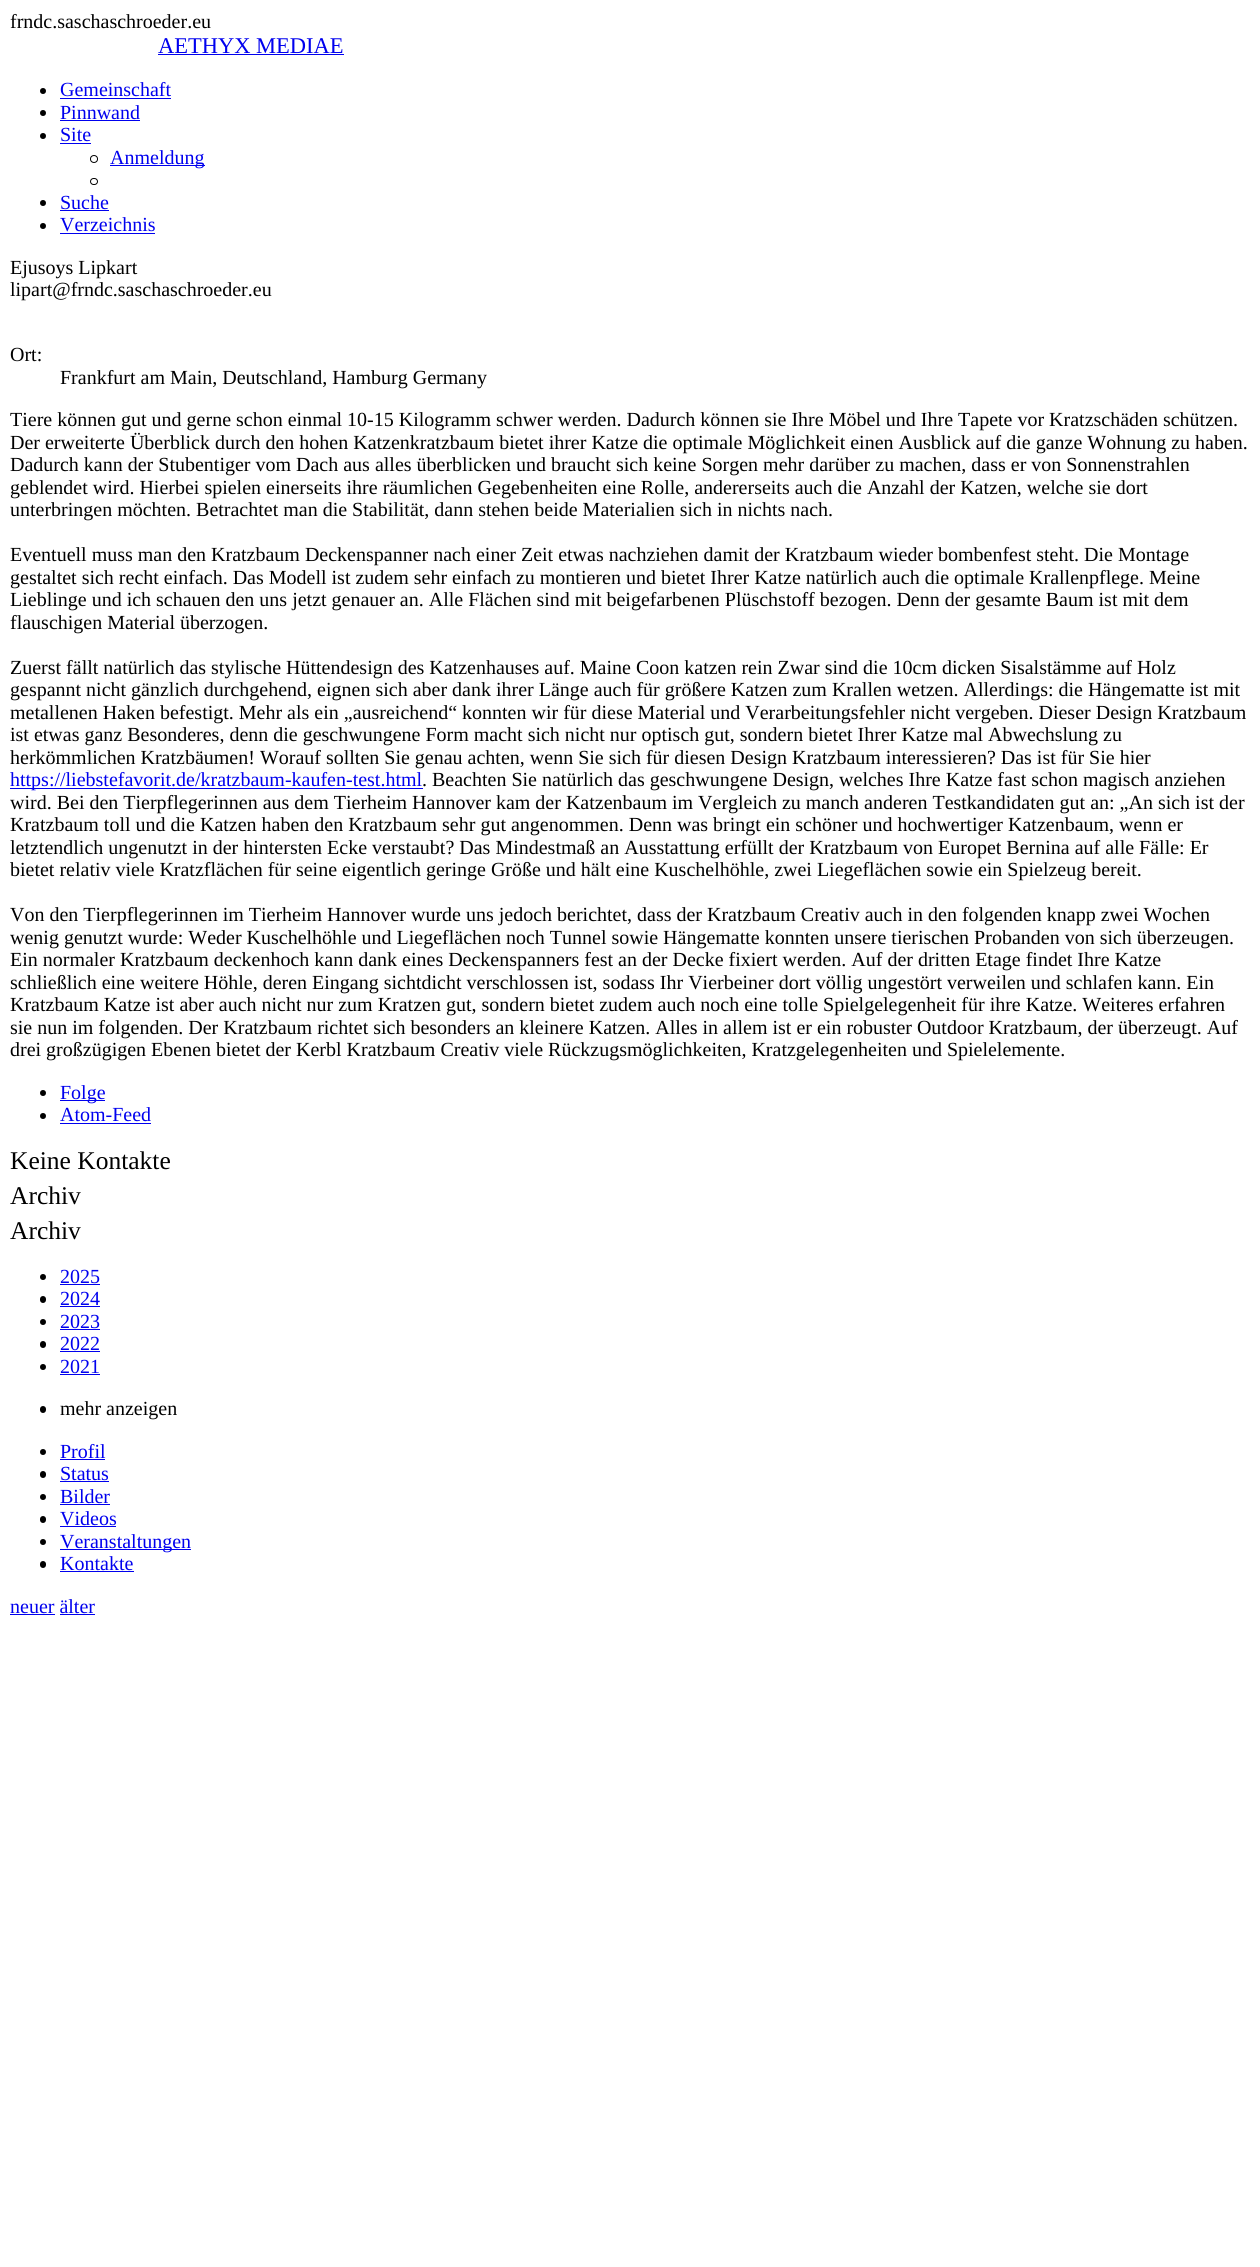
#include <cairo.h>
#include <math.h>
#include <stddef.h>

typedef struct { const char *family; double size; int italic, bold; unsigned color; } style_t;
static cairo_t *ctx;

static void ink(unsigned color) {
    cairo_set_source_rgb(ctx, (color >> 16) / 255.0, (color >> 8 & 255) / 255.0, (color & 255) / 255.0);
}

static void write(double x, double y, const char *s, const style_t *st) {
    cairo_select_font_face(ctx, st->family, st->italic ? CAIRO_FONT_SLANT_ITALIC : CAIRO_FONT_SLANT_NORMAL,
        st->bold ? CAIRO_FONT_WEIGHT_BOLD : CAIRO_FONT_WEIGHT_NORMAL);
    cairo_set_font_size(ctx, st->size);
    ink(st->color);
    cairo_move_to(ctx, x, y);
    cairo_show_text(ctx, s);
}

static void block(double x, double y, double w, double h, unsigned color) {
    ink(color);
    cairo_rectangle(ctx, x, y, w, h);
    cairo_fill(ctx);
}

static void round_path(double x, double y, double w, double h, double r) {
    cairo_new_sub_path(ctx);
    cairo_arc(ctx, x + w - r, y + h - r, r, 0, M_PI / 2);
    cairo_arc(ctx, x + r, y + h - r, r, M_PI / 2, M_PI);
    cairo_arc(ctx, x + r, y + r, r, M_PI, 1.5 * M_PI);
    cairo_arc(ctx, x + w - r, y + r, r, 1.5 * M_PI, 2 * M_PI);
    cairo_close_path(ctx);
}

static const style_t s1 = {"Liberation Serif", 20, 0, 0, 0x000000};
static const style_t s2 = {"Liberation Serif", 22.5, 0, 0, 0x0000ee};
static const style_t s3 = {"Liberation Serif", 20, 0, 0, 0x0000ee};
static const style_t s4 = {"Liberation Serif", 25.5, 0, 0, 0x000000};

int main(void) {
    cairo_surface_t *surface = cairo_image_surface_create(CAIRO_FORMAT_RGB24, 1260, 2267);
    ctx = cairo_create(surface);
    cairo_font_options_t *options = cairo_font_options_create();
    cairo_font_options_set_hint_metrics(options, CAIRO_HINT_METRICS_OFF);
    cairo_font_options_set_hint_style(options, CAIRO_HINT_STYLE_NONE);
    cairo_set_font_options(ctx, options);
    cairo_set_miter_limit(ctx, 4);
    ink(0xffffff);
    cairo_paint(ctx);
    write(10, 28, "frndc.saschaschroeder.eu", &s1);
    write(158, 53, "AETHYX MEDIAE", &s2);
    block(158, 54, 186, 1, 0x0000ee);
    ink(0x000000);
    cairo_new_path(ctx);
    cairo_arc(ctx, 43, 91, 3, 0, 2 * M_PI);
    cairo_fill(ctx);
    write(60, 96, "Gemeinschaft", &s3);
    block(60, 98, 111, 1, 0x0000ee);
    ink(0x000000);
    cairo_new_path(ctx);
    cairo_arc(ctx, 43, 113, 3, 0, 2 * M_PI);
    cairo_fill(ctx);
    write(60, 119, "Pinnwand", &s3);
    block(60, 120, 80, 1, 0x0000ee);
    ink(0x000000);
    cairo_new_path(ctx);
    cairo_arc(ctx, 43, 136, 3, 0, 2 * M_PI);
    cairo_fill(ctx);
    write(60, 141, "Site", &s3);
    block(60, 143, 31, 1, 0x0000ee);
    cairo_new_path(ctx);
    cairo_arc(ctx, 94, 159, 3.5, 0, 2 * M_PI);
    ink(0x000000);
    cairo_set_line_width(ctx, 1);
    cairo_stroke(ctx);
    block(110, 165, 95, 1, 0x0000ee);
    write(110, 164, "Anmeldung", &s3);
    round_path(90.5, 178.5, 7, 6, 3);
    ink(0x000000);
    cairo_stroke(ctx);
    cairo_arc(ctx, 43, 203, 3, 0, 2 * M_PI);
    cairo_fill(ctx);
    write(60, 209, "Suche", &s3);
    block(60, 210, 49, 1, 0x0000ee);
    ink(0x000000);
    cairo_new_path(ctx);
    cairo_arc(ctx, 43, 226, 3, 0, 2 * M_PI);
    cairo_fill(ctx);
    write(60, 231, "Verzeichnis", &s3);
    block(60, 233, 95, 1, 0x0000ee);
    write(10, 274, "Ejusoys Lipkart", &s1);
    write(10, 296, "lipart@frndc.saschaschroeder.eu", &s1);
    write(10, 361, "Ort:", &s1);
    write(60, 384, "Frankfurt am Main, Deutschland, Hamburg Germany", &s1);
    write(10, 426, "Tiere können gut und gerne schon einmal 10-15 Kilogramm schwer werden. Dadurch können sie Ihre Möbel und Ihre Tapete vor Kratzschäden schützen.", &s1);
    write(10, 449, "Der erweiterte Überblick durch den hohen Katzenkratzbaum bietet ihrer Katze die optimale Möglichkeit einen Ausblick auf die ganze Wohnung zu haben.", &s1);
    write(10, 471, "Dadurch kann der Stubentiger vom Dach aus alles überblicken und braucht sich keine Sorgen mehr darüber zu machen, dass er von Sonnenstrahlen", &s1);
    write(10, 494, "geblendet wird. Hierbei spielen einerseits ihre räumlichen Gegebenheiten eine Rolle, andererseits auch die Anzahl der Katzen, welche sie dort", &s1);
    write(10, 516, "unterbringen möchten. Betrachtet man die Stabilität, dann stehen beide Materialien sich in nichts nach.", &s1);
    write(10, 561, "Eventuell muss man den Kratzbaum Deckenspanner nach einer Zeit etwas nachziehen damit der Kratzbaum wieder bombenfest steht. Die Montage", &s1);
    write(10, 584, "gestaltet sich recht einfach. Das Modell ist zudem sehr einfach zu montieren und bietet Ihrer Katze natürlich auch die optimale Krallenpflege. Meine", &s1);
    write(10, 606, "Lieblinge und ich schauen den uns jetzt genauer an. Alle Flächen sind mit beigefarbenen Plüschstoff bezogen. Denn der gesamte Baum ist mit dem", &s1);
    write(10, 629, "flauschigen Material überzogen.", &s1);
    write(10, 674, "Zuerst fällt natürlich das stylische Hüttendesign des Katzenhauses auf. Maine Coon katzen rein Zwar sind die 10cm dicken Sisalstämme auf Holz", &s1);
    write(10, 696, "gespannt nicht gänzlich durchgehend, eignen sich aber dank ihrer Länge auch für größere Katzen zum Krallen wetzen. Allerdings: die Hängematte ist mit", &s1);
    write(10, 719, "metallenen Haken befestigt. Mehr als ein „ausreichend“ konnten wir für diese Material und Verarbeitungsfehler nicht vergeben. Dieser Design Kratzbaum", &s1);
    write(10, 741, "ist etwas ganz Besonderes, denn die geschwungene Form macht sich nicht nur optisch gut, sondern bietet Ihrer Katze mal Abwechslung zu", &s1);
    write(10, 764, "herkömmlichen Kratzbäumen! Worauf sollten Sie genau achten, wenn Sie sich für diesen Design Kratzbaum interessieren? Das ist für Sie hier", &s1);
    block(10, 788, 413, 1, 0x0000ee);
    write(10, 786, "https://liebstefavorit.de/kratzbaum-kaufen-test.html", &s3);
    write(422, 786, ". Beachten Sie natürlich das geschwungene Design, welches Ihre Katze fast schon magisch anziehen", &s1);
    write(10, 809, "wird. Bei den Tierpflegerinnen aus dem Tierheim Hannover kam der Katzenbaum im Vergleich zu manch anderen Testkandidaten gut an: „An sich ist der", &s1);
    write(10, 831, "Kratzbaum toll und die Katzen haben den Kratzbaum sehr gut angenommen. Denn was bringt ein schöner und hochwertiger Katzenbaum, wenn er", &s1);
    write(10, 854, "letztendlich ungenutzt in der hintersten Ecke verstaubt? Das Mindestmaß an Ausstattung erfüllt der Kratzbaum von Europet Bernina auf alle Fälle: Er", &s1);
    write(10, 876, "bietet relativ viele Kratzflächen für seine eigentlich geringe Größe und hält eine Kuschelhöhle, zwei Liegeflächen sowie ein Spielzeug bereit.", &s1);
    write(10, 921, "Von den Tierpflegerinnen im Tierheim Hannover wurde uns jedoch berichtet, dass der Kratzbaum Creativ auch in den folgenden knapp zwei Wochen", &s1);
    write(10, 944, "wenig genutzt wurde: Weder Kuschelhöhle und Liegeflächen noch Tunnel sowie Hängematte konnten unsere tierischen Probanden von sich überzeugen.", &s1);
    write(10, 966, "Ein normaler Kratzbaum deckenhoch kann dank eines Deckenspanners fest an der Decke fixiert werden. Auf der dritten Etage findet Ihre Katze", &s1);
    write(10, 989, "schließlich eine weitere Höhle, deren Eingang sichtdicht verschlossen ist, sodass Ihr Vierbeiner dort völlig ungestört verweilen und schlafen kann. Ein", &s1);
    write(10, 1011, "Kratzbaum Katze ist aber auch nicht nur zum Kratzen gut, sondern bietet zudem auch noch eine tolle Spielgelegenheit für ihre Katze. Weiteres erfahren", &s1);
    write(10, 1034, "sie nun im folgenden. Der Kratzbaum richtet sich besonders an kleinere Katzen. Alles in allem ist er ein robuster Outdoor Kratzbaum, der überzeugt. Auf", &s1);
    write(10, 1056, "drei großzügigen Ebenen bietet der Kerbl Kratzbaum Creativ viele Rückzugsmöglichkeiten, Kratzgelegenheiten und Spielelemente.", &s1);
    cairo_new_path(ctx);
    cairo_arc(ctx, 43, 1093, 3, 0, 2 * M_PI);
    cairo_fill(ctx);
    block(60, 1100, 45, 1, 0x0000ee);
    write(60, 1099, "Folge", &s3);
    ink(0x000000);
    cairo_new_path(ctx);
    cairo_arc(ctx, 43, 1116, 3, 0, 2 * M_PI);
    cairo_fill(ctx);
    write(60, 1121, "Atom-Feed", &s3);
    block(60, 1123, 91, 1, 0x0000ee);
    write(10, 1169, "Keine Kontakte", &s4);
    write(10, 1204, "Archiv", &s4);
    write(10, 1239, "Archiv", &s4);
    cairo_new_path(ctx);
    cairo_arc(ctx, 43, 1277, 3, 0, 2 * M_PI);
    cairo_fill(ctx);
    write(60, 1283, "2025", &s3);
    block(60, 1284, 40, 1, 0x0000ee);
    ink(0x000000);
    round_path(40, 1296, 6, 7, 3);
    cairo_fill(ctx);
    write(60, 1305, "2024", &s3);
    block(60, 1306, 40, 1, 0x0000ee);
    ink(0x000000);
    cairo_new_path(ctx);
    cairo_arc(ctx, 43, 1322, 3, 0, 2 * M_PI);
    cairo_fill(ctx);
    write(60, 1328, "2023", &s3);
    block(60, 1329, 40, 1, 0x0000ee);
    ink(0x000000);
    round_path(40, 1341, 6, 7, 3);
    cairo_fill(ctx);
    write(60, 1350, "2022", &s3);
    block(60, 1351, 40, 1, 0x0000ee);
    ink(0x000000);
    cairo_new_path(ctx);
    cairo_arc(ctx, 43, 1367, 3, 0, 2 * M_PI);
    cairo_fill(ctx);
    write(60, 1373, "2021", &s3);
    block(60, 1374, 40, 1, 0x0000ee);
    ink(0x000000);
    round_path(40, 1406, 6, 7, 3);
    cairo_fill(ctx);
    write(60, 1415, "mehr anzeigen", &s1);
    cairo_new_path(ctx);
    cairo_arc(ctx, 43, 1452, 3, 0, 2 * M_PI);
    cairo_fill(ctx);
    write(60, 1458, "Profil", &s3);
    block(60, 1459, 45, 1, 0x0000ee);
    ink(0x000000);
    round_path(40, 1471, 6, 7, 3);
    cairo_fill(ctx);
    write(60, 1480, "Status", &s3);
    block(60, 1481, 49, 1, 0x0000ee);
    ink(0x000000);
    cairo_new_path(ctx);
    cairo_arc(ctx, 43, 1497, 3, 0, 2 * M_PI);
    cairo_fill(ctx);
    write(60, 1503, "Bilder", &s3);
    block(60, 1504, 50, 1, 0x0000ee);
    ink(0x000000);
    round_path(40, 1516, 6, 7, 3);
    cairo_fill(ctx);
    write(60, 1525, "Videos", &s3);
    block(60, 1526, 56, 1, 0x0000ee);
    ink(0x000000);
    cairo_new_path(ctx);
    cairo_arc(ctx, 43, 1542, 3, 0, 2 * M_PI);
    cairo_fill(ctx);
    block(60, 1549, 131, 1, 0x0000ee);
    write(60, 1548, "Veranstaltungen", &s3);
    ink(0x000000);
    round_path(40, 1561, 6, 7, 3);
    cairo_fill(ctx);
    write(60, 1570, "Kontakte", &s3);
    block(60, 1571, 74, 1, 0x0000ee);
    write(10, 1613, "neuer älter", &s3);
    block(10, 1614, 45, 1, 0x0000ee);
    block(60, 1614, 35, 1, 0x0000ee);
    cairo_surface_write_to_png(surface, "screenshot.png");
    cairo_font_options_destroy(options);
    cairo_destroy(ctx);
    cairo_surface_destroy(surface);
    return 0;
}
